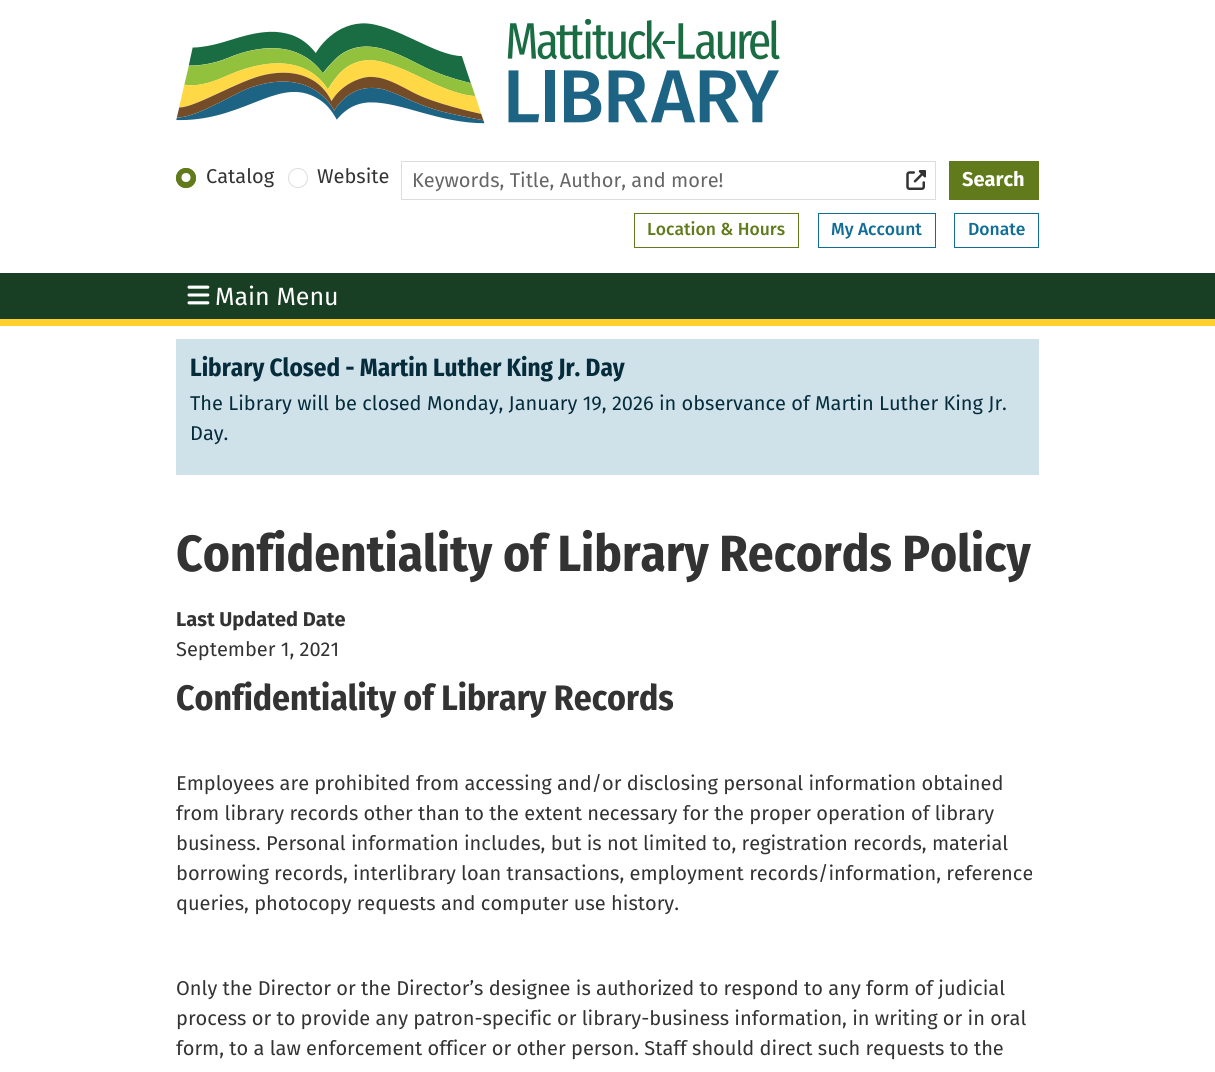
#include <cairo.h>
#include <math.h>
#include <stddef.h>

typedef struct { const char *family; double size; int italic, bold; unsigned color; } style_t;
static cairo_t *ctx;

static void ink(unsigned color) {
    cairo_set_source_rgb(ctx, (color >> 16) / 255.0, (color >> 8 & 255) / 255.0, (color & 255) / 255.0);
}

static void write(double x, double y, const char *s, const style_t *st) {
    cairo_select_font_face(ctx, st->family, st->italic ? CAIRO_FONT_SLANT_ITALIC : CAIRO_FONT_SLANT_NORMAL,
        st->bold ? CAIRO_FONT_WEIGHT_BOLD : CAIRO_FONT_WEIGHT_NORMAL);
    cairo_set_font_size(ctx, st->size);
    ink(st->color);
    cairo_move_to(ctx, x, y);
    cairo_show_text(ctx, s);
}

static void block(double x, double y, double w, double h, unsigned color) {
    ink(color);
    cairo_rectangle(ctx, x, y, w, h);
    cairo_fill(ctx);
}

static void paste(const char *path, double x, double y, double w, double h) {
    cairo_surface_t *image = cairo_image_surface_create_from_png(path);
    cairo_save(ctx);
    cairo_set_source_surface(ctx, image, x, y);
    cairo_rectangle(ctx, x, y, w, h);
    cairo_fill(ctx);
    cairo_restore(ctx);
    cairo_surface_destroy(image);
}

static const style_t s1 = {"Fira Sans", 20, 0, 0, 0x333333};
static const style_t s2 = {"Fira Sans", 20, 0, 0, 0x666666};
static const style_t s3 = {"Fira Sans", 20, 0, 1, 0xffffff};
static const style_t s4 = {"Fira Sans Medium", 17.5, 0, 0, 0x617b1c};
static const style_t s5 = {"Fira Sans Medium", 17.5, 0, 0, 0x0f6d96};
static const style_t s6 = {"Fira Sans", 25, 0, 0, 0xffffff};
static const style_t s7 = {"Fira Sans Condensed", 25, 0, 1, 0x062c3c};
static const style_t s8 = {"Fira Sans", 20, 0, 0, 0x062c3c};
static const style_t s9 = {"Fira Sans Condensed", 50.9, 0, 1, 0x333333};
static const style_t s10 = {"Fira Sans", 20, 0, 1, 0x333333};
static const style_t s11 = {"Fira Sans Condensed", 35.4, 0, 1, 0x333333};

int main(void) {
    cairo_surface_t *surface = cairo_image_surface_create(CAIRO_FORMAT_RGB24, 1215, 1072);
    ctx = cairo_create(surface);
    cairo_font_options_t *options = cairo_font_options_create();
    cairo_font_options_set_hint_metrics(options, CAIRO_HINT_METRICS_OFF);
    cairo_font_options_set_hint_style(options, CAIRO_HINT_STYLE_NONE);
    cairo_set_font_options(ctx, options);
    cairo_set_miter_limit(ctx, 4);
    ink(0xffffff);
    cairo_paint(ctx);
    paste("pic1.png", 176, 19, 604, 105);
    ink(0x617b1c);
    cairo_arc(ctx, 186, 178, 10, 0, 2 * M_PI);
    cairo_fill(ctx);
    ink(0xffffff);
    cairo_arc(ctx, 186, 177.5, 4.5, 0, 2 * M_PI);
    cairo_fill(ctx);
    cairo_arc(ctx, 186, 178, 9.5, 0, 2 * M_PI);
    ink(0x617b1c);
    cairo_set_line_width(ctx, 1);
    cairo_stroke(ctx);
    write(206, 183, "Catalog", &s1);
    cairo_new_path(ctx);
    cairo_arc(ctx, 298, 178, 9.5, 0, 2 * M_PI);
    ink(0xdddddd);
    cairo_stroke(ctx);
    write(317, 183, "Website", &s1);
    cairo_rectangle(ctx, 401.5, 161.5, 534, 38);
    ink(0xdddddd);
    cairo_stroke(ctx);
    write(412, 187, "Keywords, Title, Author, and more!", &s2);
    paste("pic2.png", 906, 170, 20, 20);
    block(949, 161, 90, 39, 0x617b1c);
    write(962, 186, "Search", &s3);
    cairo_rectangle(ctx, 634.5, 213.5, 164, 34);
    ink(0x617b1c);
    cairo_stroke(ctx);
    write(647, 235, "Location & Hours", &s4);
    cairo_rectangle(ctx, 818.5, 213.5, 117, 34);
    ink(0x0f6d96);
    cairo_stroke(ctx);
    write(831, 235, "My Account", &s5);
    cairo_rectangle(ctx, 954.5, 213.5, 84, 34);
    cairo_stroke(ctx);
    write(968, 235, "Donate", &s5);
    block(0, 273, 1215, 46, 0x183f23);
    block(0, 319, 1215, 7, 0xffcf2c);
    paste("pic3.png", 187, 285, 23, 20);
    write(215, 305, "Main Menu", &s6);
    block(176, 339, 863, 136, 0xcfe2ea);
    write(190, 376, "Library Closed - Martin Luther King Jr. Day", &s7);
    write(190, 410, "The Library will be closed Monday, January 19, 2026 in observance of Martin Luther King Jr.", &s8);
    write(190, 440, "Day.", &s8);
    write(176, 571, "Confidentiality of Library Records Policy", &s9);
    write(176, 626, "Last Updated Date", &s10);
    write(176, 656, "September 1, 2021", &s1);
    write(176, 710, "Confidentiality of Library Records", &s11);
    write(176, 790, "Employees are prohibited from accessing and/or disclosing personal information obtained", &s1);
    write(176, 820, "from library records other than to the extent necessary for the proper operation of library", &s1);
    write(176, 850, "business. Personal information includes, but is not limited to, registration records, material", &s1);
    write(176, 880, "borrowing records, interlibrary loan transactions, employment records/information, reference", &s1);
    write(176, 910, "queries, photocopy requests and computer use history.", &s1);
    write(176, 995, "Only the Director or the Director’s designee is authorized to respond to any form of judicial", &s1);
    write(176, 1025, "process or to provide any patron-specific or library-business information, in writing or in oral", &s1);
    write(176, 1055, "form, to a law enforcement officer or other person. Staff should direct such requests to the", &s1);
    cairo_surface_write_to_png(surface, "screenshot.png");
    cairo_font_options_destroy(options);
    cairo_destroy(ctx);
    cairo_surface_destroy(surface);
    return 0;
}
